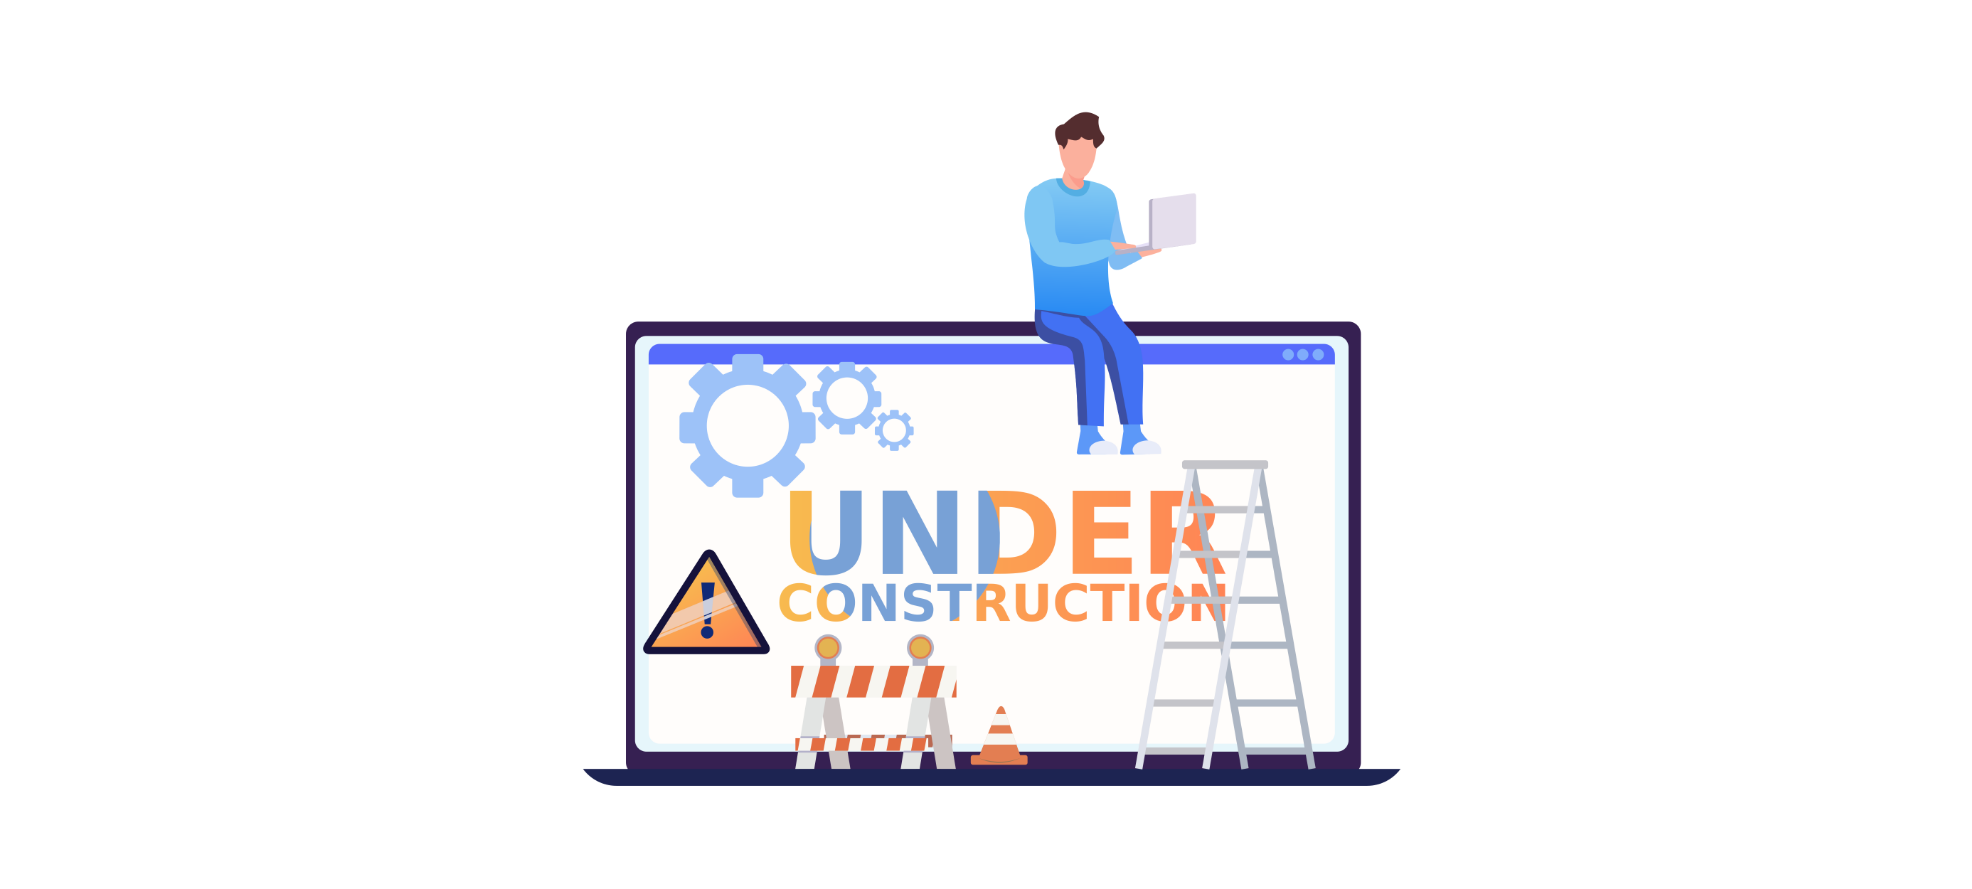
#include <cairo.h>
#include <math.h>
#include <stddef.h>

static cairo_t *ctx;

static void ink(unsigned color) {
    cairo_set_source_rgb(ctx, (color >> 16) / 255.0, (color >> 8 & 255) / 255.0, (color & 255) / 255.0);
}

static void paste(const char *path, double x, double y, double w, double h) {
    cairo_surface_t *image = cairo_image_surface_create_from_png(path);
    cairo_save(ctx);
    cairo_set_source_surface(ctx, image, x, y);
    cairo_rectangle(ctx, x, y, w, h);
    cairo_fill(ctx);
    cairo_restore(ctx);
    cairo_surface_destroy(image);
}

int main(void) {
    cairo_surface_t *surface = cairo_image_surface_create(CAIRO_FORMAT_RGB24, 1972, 889);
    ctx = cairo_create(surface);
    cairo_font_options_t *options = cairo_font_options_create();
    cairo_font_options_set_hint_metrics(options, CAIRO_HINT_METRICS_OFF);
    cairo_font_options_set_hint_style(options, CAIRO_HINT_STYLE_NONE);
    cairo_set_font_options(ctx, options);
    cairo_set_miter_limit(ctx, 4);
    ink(0xffffff);
    cairo_paint(ctx);
    paste("pic1.png", 582, 111, 819, 675);
    cairo_surface_write_to_png(surface, "screenshot.png");
    cairo_font_options_destroy(options);
    cairo_destroy(ctx);
    cairo_surface_destroy(surface);
    return 0;
}
